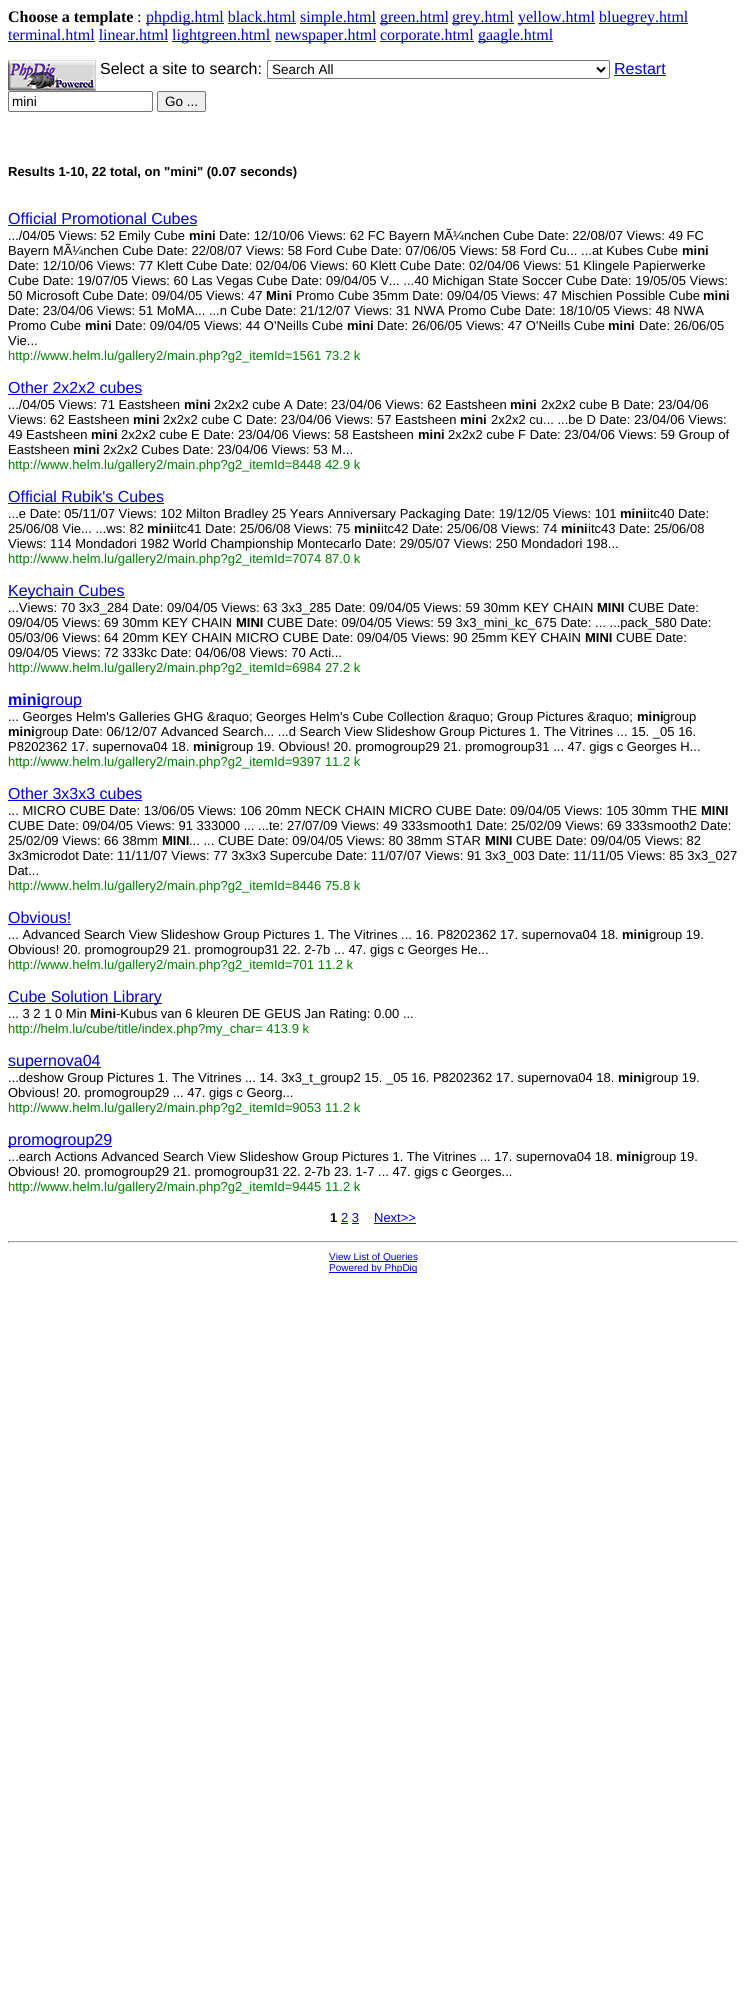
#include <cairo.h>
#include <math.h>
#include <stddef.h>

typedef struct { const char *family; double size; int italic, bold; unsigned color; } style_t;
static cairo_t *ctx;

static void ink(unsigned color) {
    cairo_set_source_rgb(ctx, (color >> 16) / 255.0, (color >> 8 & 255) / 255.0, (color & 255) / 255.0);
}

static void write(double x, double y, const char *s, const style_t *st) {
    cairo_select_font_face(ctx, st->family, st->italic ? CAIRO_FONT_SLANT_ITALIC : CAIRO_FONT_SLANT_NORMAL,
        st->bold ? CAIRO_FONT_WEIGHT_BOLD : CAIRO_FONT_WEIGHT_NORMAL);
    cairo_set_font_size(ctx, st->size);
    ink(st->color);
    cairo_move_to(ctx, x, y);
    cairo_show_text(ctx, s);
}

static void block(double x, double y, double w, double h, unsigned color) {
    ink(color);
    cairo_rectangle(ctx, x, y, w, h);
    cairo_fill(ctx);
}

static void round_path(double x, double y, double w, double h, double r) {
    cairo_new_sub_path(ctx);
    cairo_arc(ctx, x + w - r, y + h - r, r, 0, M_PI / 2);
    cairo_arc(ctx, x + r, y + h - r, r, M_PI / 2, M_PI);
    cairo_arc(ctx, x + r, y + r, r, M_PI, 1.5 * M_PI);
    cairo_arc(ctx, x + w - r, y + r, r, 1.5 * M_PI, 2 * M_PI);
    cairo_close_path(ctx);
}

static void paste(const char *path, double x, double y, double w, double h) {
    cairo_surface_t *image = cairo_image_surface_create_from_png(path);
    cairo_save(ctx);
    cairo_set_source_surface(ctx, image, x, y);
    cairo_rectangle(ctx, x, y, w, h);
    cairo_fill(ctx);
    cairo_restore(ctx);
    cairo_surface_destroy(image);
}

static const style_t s1 = {"Liberation Serif", 16, 0, 1, 0x000000};
static const style_t s2 = {"Liberation Serif", 16, 0, 0, 0x000000};
static const style_t s3 = {"Liberation Serif", 16, 0, 0, 0x0000ee};
static const style_t s4 = {"Liberation Sans", 16, 0, 0, 0x000000};
static const style_t s5 = {"Liberation Sans", 13.5, 0, 0, 0x000000};
static const style_t s6 = {"Liberation Sans", 16, 0, 0, 0x0000ee};
static const style_t s7 = {"Liberation Sans", 13, 0, 1, 0x000000};
static const style_t s8 = {"Liberation Sans", 13, 0, 0, 0x000000};
static const style_t s9 = {"Liberation Sans", 13, 0, 0, 0x008000};
static const style_t s10 = {"Liberation Sans", 16, 0, 1, 0x0000ee};
static const style_t s11 = {"Liberation Sans", 13, 0, 0, 0x0000ee};
static const style_t s12 = {"Liberation Sans", 10, 0, 0, 0x0000ee};

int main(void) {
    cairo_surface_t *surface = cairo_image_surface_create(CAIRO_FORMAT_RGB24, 746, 2001);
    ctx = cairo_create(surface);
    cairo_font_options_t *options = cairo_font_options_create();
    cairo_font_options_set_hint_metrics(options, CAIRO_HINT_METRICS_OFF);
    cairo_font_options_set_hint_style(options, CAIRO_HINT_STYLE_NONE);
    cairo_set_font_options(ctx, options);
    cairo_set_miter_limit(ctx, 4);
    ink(0xffffff);
    cairo_paint(ctx);
    write(8, 22, "Choose a template", &s1);
    write(137, 22, ":", &s2);
    block(146, 23, 78, 1, 0x0000ee);
    write(146, 22, "phpdig.html black.html", &s3);
    block(300, 23, 76, 1, 0x0000ee);
    write(300, 22, "simple.html", &s3);
    block(380, 23, 68, 1, 0x0000ee);
    write(380, 22, "green.html", &s3);
    block(452, 23, 62, 1, 0x0000ee);
    write(452, 22, "grey.html", &s3);
    block(518, 23, 77, 1, 0x0000ee);
    write(518, 22, "yellow.html", &s3);
    block(599, 23, 89, 1, 0x0000ee);
    write(599, 22, "bluegrey.html", &s3);
    block(228, 23, 68, 1, 0x0000ee);
    write(8, 40, "terminal.html linear.html", &s3);
    block(8, 41, 87, 1, 0x0000ee);
    block(172, 41, 99, 1, 0x0000ee);
    write(172, 40, "lightgreen.html", &s3);
    block(275, 41, 101, 1, 0x0000ee);
    write(275, 40, "newspaper.html", &s3);
    block(380, 41, 94, 1, 0x0000ee);
    write(380, 40, "corporate.html", &s3);
    block(478, 41, 75, 1, 0x0000ee);
    write(478, 40, "gaagle.html", &s3);
    block(99, 41, 69, 1, 0x0000ee);
    paste("pic1.png", 8, 60, 88, 31);
    write(100, 74, "Select a site to search:", &s4);
    round_path(267.5, 60.5, 342, 18, 1.5);
    ink(0x767676);
    cairo_set_line_width(ctx, 1);
    cairo_stroke(ctx);
    cairo_new_path(ctx);
    cairo_move_to(ctx, 597, 67.5);
    cairo_line_to(ctx, 601, 71.5);
    cairo_line_to(ctx, 605, 67.5);
    ink(0x000000);
    cairo_set_line_width(ctx, 2);
    cairo_stroke(ctx);
    write(272, 74, "Search All", &s5);
    write(614, 74, "Restart", &s6);
    block(614, 75, 52, 1, 0x0000ee);
    round_path(8.5, 91.5, 144, 20, 1.5);
    ink(0x767676);
    cairo_set_line_width(ctx, 1);
    cairo_stroke(ctx);
    write(12, 106, "mini", &s5);
    ink(0xefefef);
    round_path(157.5, 91.5, 48, 20, 1.5);
    cairo_fill_preserve(ctx);
    ink(0x767676);
    cairo_stroke(ctx);
    write(165, 106, "Go ...", &s5);
    write(8, 176, "Results 1-10, 22 total, on \"mini\" (0.07 seconds)", &s7);
    write(8, 224, "Official Promotional Cubes", &s6);
    block(8, 225, 189, 1, 0x0000ee);
    write(8, 240, ".../04/05 Views: 52 Emily Cube", &s8);
    write(189, 240, "mini", &s7);
    write(219, 240, "Date: 12/10/06 Views: 62 FC Bayern MÃ¼nchen Cube Date: 22/08/07 Views: 49 FC", &s8);
    write(8, 255, "Bayern MÃ¼nchen Cube Date: 22/08/07 Views: 58 Ford Cube Date: 07/06/05 Views: 58 Ford Cu... ...at Kubes Cube", &s8);
    write(682, 255, "mini", &s7);
    write(8, 270, "Date: 12/10/06 Views: 77 Klett Cube Date: 02/04/06 Views: 60 Klett Cube Date: 02/04/06 Views: 51 Klingele Papierwerke", &s8);
    write(8, 285, "Cube Date: 19/07/05 Views: 60 Las Vegas Cube Date: 09/04/05 V... ...40 Michigan State Soccer Cube Date: 19/05/05 Views:", &s8);
    write(8, 300, "50 Microsoft Cube Date: 09/04/05 Views: 47", &s8);
    write(266, 300, "Mini", &s7);
    write(296, 300, "Promo Cube 35mm Date: 09/04/05 Views: 47 Mischien Possible Cube", &s8);
    write(703, 300, "mini", &s7);
    write(8, 315, "Date: 23/04/06 Views: 51 MoMA... ...n Cube Date: 21/12/07 Views: 31 NWA Promo Cube Date: 18/10/05 Views: 48 NWA", &s8);
    write(8, 330, "Promo Cube", &s8);
    write(85, 330, "mini", &s7);
    write(115, 330, "Date: 09/04/05 Views: 44 O'Neills Cube", &s8);
    write(347, 330, "mini", &s7);
    write(377, 330, "Date: 26/06/05 Views: 47 O'Neills Cube", &s8);
    write(608, 330, "mini", &s7);
    write(639, 330, "Date: 26/06/05", &s8);
    write(8, 345, "Vie...", &s8);
    write(8, 360, "http://www.helm.lu/gallery2/main.php?g2_itemId=1561 73.2 k", &s9);
    write(8, 393, "Other 2x2x2 cubes", &s6);
    block(8, 394, 134, 1, 0x0000ee);
    write(8, 409, ".../04/05 Views: 71 Eastsheen", &s8);
    write(184, 409, "mini", &s7);
    write(214, 409, "2x2x2 cube A Date: 23/04/06 Views: 62 Eastsheen", &s8);
    write(510, 409, "mini", &s7);
    write(541, 409, "2x2x2 cube B Date: 23/04/06", &s8);
    write(8, 424, "Views: 62 Eastsheen", &s8);
    write(133, 424, "mini", &s7);
    write(163, 424, "2x2x2 cube C Date: 23/04/06 Views: 57 Eastsheen", &s8);
    write(460, 424, "mini", &s7);
    write(491, 424, "2x2x2 cu... ...be D Date: 23/04/06 Views:", &s8);
    write(8, 439, "49 Eastsheen", &s8);
    write(91, 439, "mini", &s7);
    write(121, 439, "2x2x2 cube E Date: 23/04/06 Views: 58 Eastsheen", &s8);
    write(418, 439, "mini", &s7);
    write(448, 439, "2x2x2 cube F Date: 23/04/06 Views: 59 Group of", &s8);
    write(8, 454, "Eastsheen", &s8);
    write(73, 454, "mini", &s7);
    write(103, 454, "2x2x2 Cubes Date: 23/04/06 Views: 53 M...", &s8);
    write(8, 469, "http://www.helm.lu/gallery2/main.php?g2_itemId=8448 42.9 k", &s9);
    write(8, 502, "Official Rubik's Cubes", &s6);
    block(8, 503, 156, 1, 0x0000ee);
    write(8, 518, "...e Date: 05/11/07 Views: 102 Milton Bradley 25 Years Anniversary Packaging Date: 19/12/05 Views: 101", &s8);
    write(620, 518, "mini", &s7);
    write(647, 518, "itc40 Date:", &s8);
    write(8, 533, "25/06/08 Vie... ...ws: 82", &s8);
    write(147, 533, "mini", &s7);
    write(174, 533, "itc41 Date: 25/06/08 Views: 75", &s8);
    write(354, 533, "mini", &s7);
    write(381, 533, "itc42 Date: 25/06/08 Views: 74", &s8);
    write(561, 533, "mini", &s7);
    write(588, 533, "itc43 Date: 25/06/08", &s8);
    write(8, 548, "Views: 114 Mondadori 1982 World Championship Montecarlo Date: 29/05/07 Views: 250 Mondadori 198...", &s8);
    write(8, 563, "http://www.helm.lu/gallery2/main.php?g2_itemId=7074 87.0 k", &s9);
    block(8, 597, 117, 1, 0x0000ee);
    write(8, 596, "Keychain Cubes", &s6);
    write(8, 612, "...Views: 70 3x3_284 Date: 09/04/05 Views: 63 3x3_285 Date: 09/04/05 Views: 59 30mm KEY CHAIN", &s8);
    write(597, 612, "MINI", &s7);
    write(628, 612, "CUBE Date:", &s8);
    write(8, 627, "09/04/05 Views: 69 30mm KEY CHAIN", &s8);
    write(236, 627, "MINI", &s7);
    write(267, 627, "CUBE Date: 09/04/05 Views: 59 3x3_mini_kc_675 Date: ... ...pack_580 Date:", &s8);
    write(8, 642, "05/03/06 Views: 64 20mm KEY CHAIN MICRO CUBE Date: 09/04/05 Views: 90 25mm KEY CHAIN", &s8);
    write(585, 642, "MINI", &s7);
    write(616, 642, "CUBE Date:", &s8);
    write(8, 657, "09/04/05 Views: 72 333kc Date: 04/06/08 Views: 70 Acti...", &s8);
    write(8, 672, "http://www.helm.lu/gallery2/main.php?g2_itemId=6984 27.2 k", &s9);
    write(8, 705, "mini", &s10);
    block(8, 706, 74, 1, 0x0000ee);
    write(41, 705, "group", &s6);
    write(8, 721, "... Georges Helm's Galleries GHG &raquo; Georges Helm's Cube Collection &raquo; Group Pictures &raquo;", &s8);
    write(637, 721, "mini", &s7);
    write(663, 721, "group", &s8);
    write(8, 736, "mini", &s7);
    write(35, 736, "group Date: 06/12/07 Advanced Search... ...d Search View Slideshow Group Pictures 1. The Vitrines ... 15. _05 16.", &s8);
    write(8, 751, "P8202362 17. supernova04 18.", &s8);
    write(193, 751, "mini", &s7);
    write(220, 751, "group 19. Obvious! 20. promogroup29 21. promogroup31 ... 47. gigs c Georges H...", &s8);
    write(8, 766, "http://www.helm.lu/gallery2/main.php?g2_itemId=9397 11.2 k", &s9);
    write(8, 799, "Other 3x3x3 cubes", &s6);
    block(8, 800, 134, 1, 0x0000ee);
    write(8, 815, "... MICRO CUBE Date: 13/06/05 Views: 106 20mm NECK CHAIN MICRO CUBE Date: 09/04/05 Views: 105 30mm THE", &s8);
    write(701, 815, "MINI", &s7);
    write(8, 830, "CUBE Date: 09/04/05 Views: 91 333000 ... ...te: 27/07/09 Views: 49 333smooth1 Date: 25/02/09 Views: 69 333smooth2 Date:", &s8);
    write(8, 845, "25/02/09 Views: 66 38mm", &s8);
    write(162, 845, "MINI", &s7);
    write(189, 845, "... ... CUBE Date: 09/04/05 Views: 80 38mm STAR", &s8);
    write(485, 845, "MINI", &s7);
    write(516, 845, "CUBE Date: 09/04/05 Views: 82", &s8);
    write(8, 860, "3x3microdot Date: 11/11/07 Views: 77 3x3x3 Supercube Date: 11/07/07 Views: 91 3x3_003 Date: 11/11/05 Views: 85 3x3_027", &s8);
    write(8, 875, "Dat...", &s8);
    write(8, 890, "http://www.helm.lu/gallery2/main.php?g2_itemId=8446 75.8 k", &s9);
    write(8, 923, "Obvious!", &s6);
    block(8, 924, 63, 1, 0x0000ee);
    write(8, 939, "... Advanced Search View Slideshow Group Pictures 1. The Vitrines ... 16. P8202362 17. supernova04 18.", &s8);
    write(622, 939, "mini", &s7);
    write(649, 939, "group 19.", &s8);
    write(8, 954, "Obvious! 20. promogroup29 21. promogroup31 22. 2-7b ... 47. gigs c Georges He...", &s8);
    write(8, 969, "http://www.helm.lu/gallery2/main.php?g2_itemId=701 11.2 k", &s9);
    block(8, 1003, 154, 1, 0x0000ee);
    write(8, 1002, "Cube Solution Library", &s6);
    write(8, 1018, "... 3 2 1 0 Min", &s8);
    write(90, 1018, "Mini", &s7);
    write(116, 1018, "-Kubus van 6 kleuren DE GEUS Jan Rating: 0.00 ...", &s8);
    write(8, 1033, "http://helm.lu/cube/title/index.php?my_char= 413.9 k", &s9);
    block(8, 1067, 93, 1, 0x0000ee);
    write(8, 1066, "supernova04", &s6);
    write(8, 1082, "...deshow Group Pictures 1. The Vitrines ... 14. 3x3_t_group2 15. _05 16. P8202362 17. supernova04 18.", &s8);
    write(618, 1082, "mini", &s7);
    write(645, 1082, "group 19.", &s8);
    write(8, 1097, "Obvious! 20. promogroup29 ... 47. gigs c Georg...", &s8);
    write(8, 1112, "http://www.helm.lu/gallery2/main.php?g2_itemId=9053 11.2 k", &s9);
    block(8, 1146, 104, 1, 0x0000ee);
    write(8, 1145, "promogroup29", &s6);
    write(8, 1161, "...earch Actions Advanced Search View Slideshow Group Pictures 1. The Vitrines ... 17. supernova04 18.", &s8);
    write(616, 1161, "mini", &s7);
    write(643, 1161, "group 19.", &s8);
    write(8, 1176, "Obvious! 20. promogroup29 21. promogroup31 22. 2-7b 23. 1-7 ... 47. gigs c Georges...", &s8);
    write(8, 1191, "http://www.helm.lu/gallery2/main.php?g2_itemId=9445 11.2 k", &s9);
    write(330, 1222, "1", &s7);
    write(341, 1222, "2 3", &s11);
    block(341, 1223, 7, 1, 0x0000ee);
    block(352, 1223, 7, 1, 0x0000ee);
    write(374, 1222, "Next>>", &s11);
    block(374, 1223, 42, 1, 0x0000ee);
    block(8, 1241, 730, 1, 0x9f9f9f);
    block(737, 1241, 1, 2, 0xeeeeee);
    block(8, 1242, 730, 1, 0xeeeeee);
    block(8, 1241, 1, 2, 0x9f9f9f);
    block(329, 1261, 88, 1, 0x0000ee);
    write(329, 1260, "View List of Queries", &s12);
    block(329, 1272, 88, 1, 0x0000ee);
    write(329, 1271, "Powered by PhpDig", &s12);
    cairo_surface_write_to_png(surface, "screenshot.png");
    cairo_font_options_destroy(options);
    cairo_destroy(ctx);
    cairo_surface_destroy(surface);
    return 0;
}
